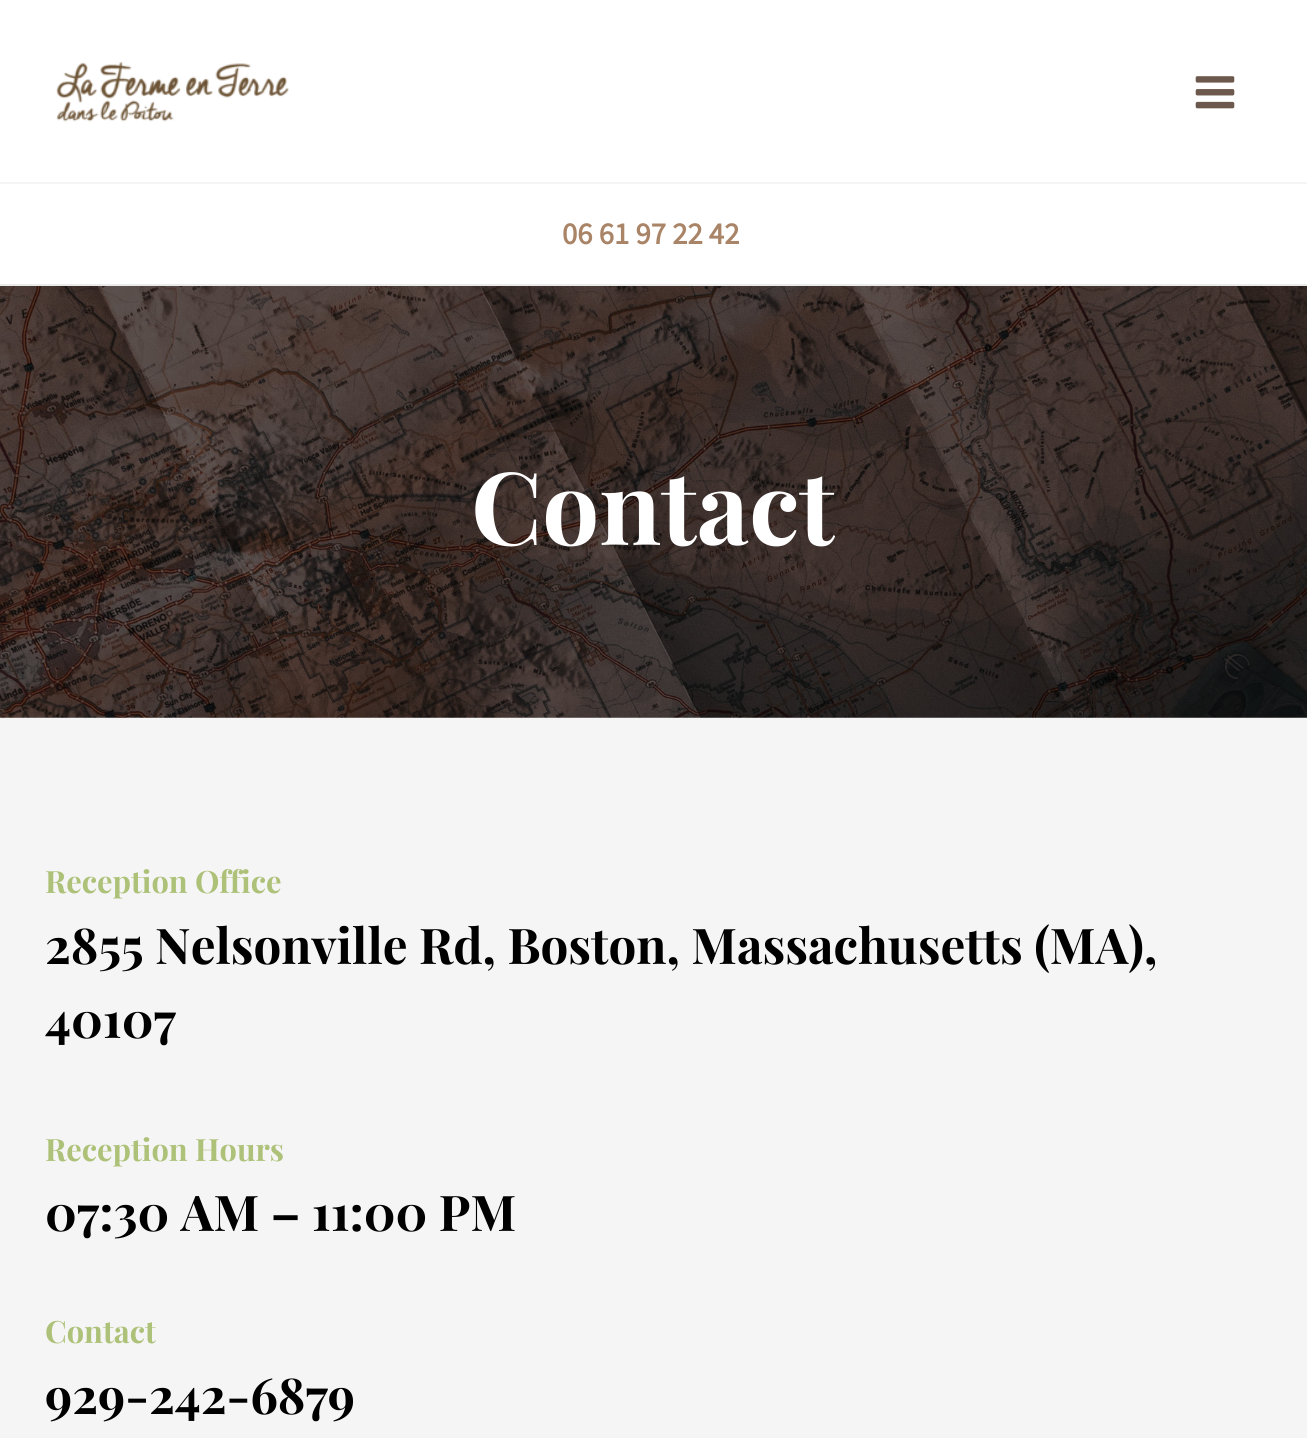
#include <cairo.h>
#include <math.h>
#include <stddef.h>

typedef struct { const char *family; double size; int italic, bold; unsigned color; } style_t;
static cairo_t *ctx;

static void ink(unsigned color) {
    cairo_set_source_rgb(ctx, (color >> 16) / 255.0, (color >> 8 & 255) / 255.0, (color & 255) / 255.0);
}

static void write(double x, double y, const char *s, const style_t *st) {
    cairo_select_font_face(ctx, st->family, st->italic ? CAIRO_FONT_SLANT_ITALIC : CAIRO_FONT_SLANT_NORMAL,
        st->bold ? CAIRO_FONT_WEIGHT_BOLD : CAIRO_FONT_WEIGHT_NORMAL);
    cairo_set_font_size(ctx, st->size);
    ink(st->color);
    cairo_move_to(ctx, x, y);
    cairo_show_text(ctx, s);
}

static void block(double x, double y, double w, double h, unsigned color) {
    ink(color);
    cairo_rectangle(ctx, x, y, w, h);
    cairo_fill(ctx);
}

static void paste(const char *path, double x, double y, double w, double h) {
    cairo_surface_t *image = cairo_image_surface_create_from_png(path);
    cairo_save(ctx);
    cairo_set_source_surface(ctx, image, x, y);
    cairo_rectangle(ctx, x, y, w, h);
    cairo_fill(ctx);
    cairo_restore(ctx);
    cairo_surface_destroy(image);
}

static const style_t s1 = {"Source Sans Pro", 30.75, 0, 1, 0xa98467};
static const style_t s2 = {"Playfair Display", 101, 0, 1, 0xffffff};
static const style_t s3 = {"Playfair Display", 30.75, 0, 1, 0xadc178};
static const style_t s4 = {"Playfair Display", 49.25, 0, 1, 0x000000};

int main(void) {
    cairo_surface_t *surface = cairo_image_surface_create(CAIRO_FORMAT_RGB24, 1307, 1438);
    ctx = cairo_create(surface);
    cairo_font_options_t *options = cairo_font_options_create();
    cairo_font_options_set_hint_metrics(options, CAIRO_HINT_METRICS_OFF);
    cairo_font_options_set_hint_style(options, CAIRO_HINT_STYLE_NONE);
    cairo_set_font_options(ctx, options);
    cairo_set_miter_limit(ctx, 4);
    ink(0xf5f5f5);
    cairo_paint(ctx);
    block(0, 0, 1307, 284, 0xffffff);
    block(0, 182, 1307, 2, 0xf5f5f5);
    paste("pic1.png", 56, 62, 233, 60);
    paste("pic2.png", 1195, 76, 40, 33);
    block(0, 284, 1307, 2, 0xeaeaea);
    write(562, 244, "06 61 97 22 42", &s1);
    paste("pic3.png", 0, 286, 1307, 432);
    write(471, 545, "Contact", &s2);
    write(45, 893, "Reception Office", &s3);
    write(45, 964, "2855 Nelsonville Rd, Boston, Massachusetts (MA),", &s4);
    write(45, 1038, "40107", &s4);
    write(45, 1161, "Reception Hours", &s3);
    write(45, 1231, "07:30 AM – 11:00 PM", &s4);
    write(45, 1343, "Contact", &s3);
    write(45, 1414, "929-242-6879", &s4);
    cairo_surface_write_to_png(surface, "screenshot.png");
    cairo_font_options_destroy(options);
    cairo_destroy(ctx);
    cairo_surface_destroy(surface);
    return 0;
}
